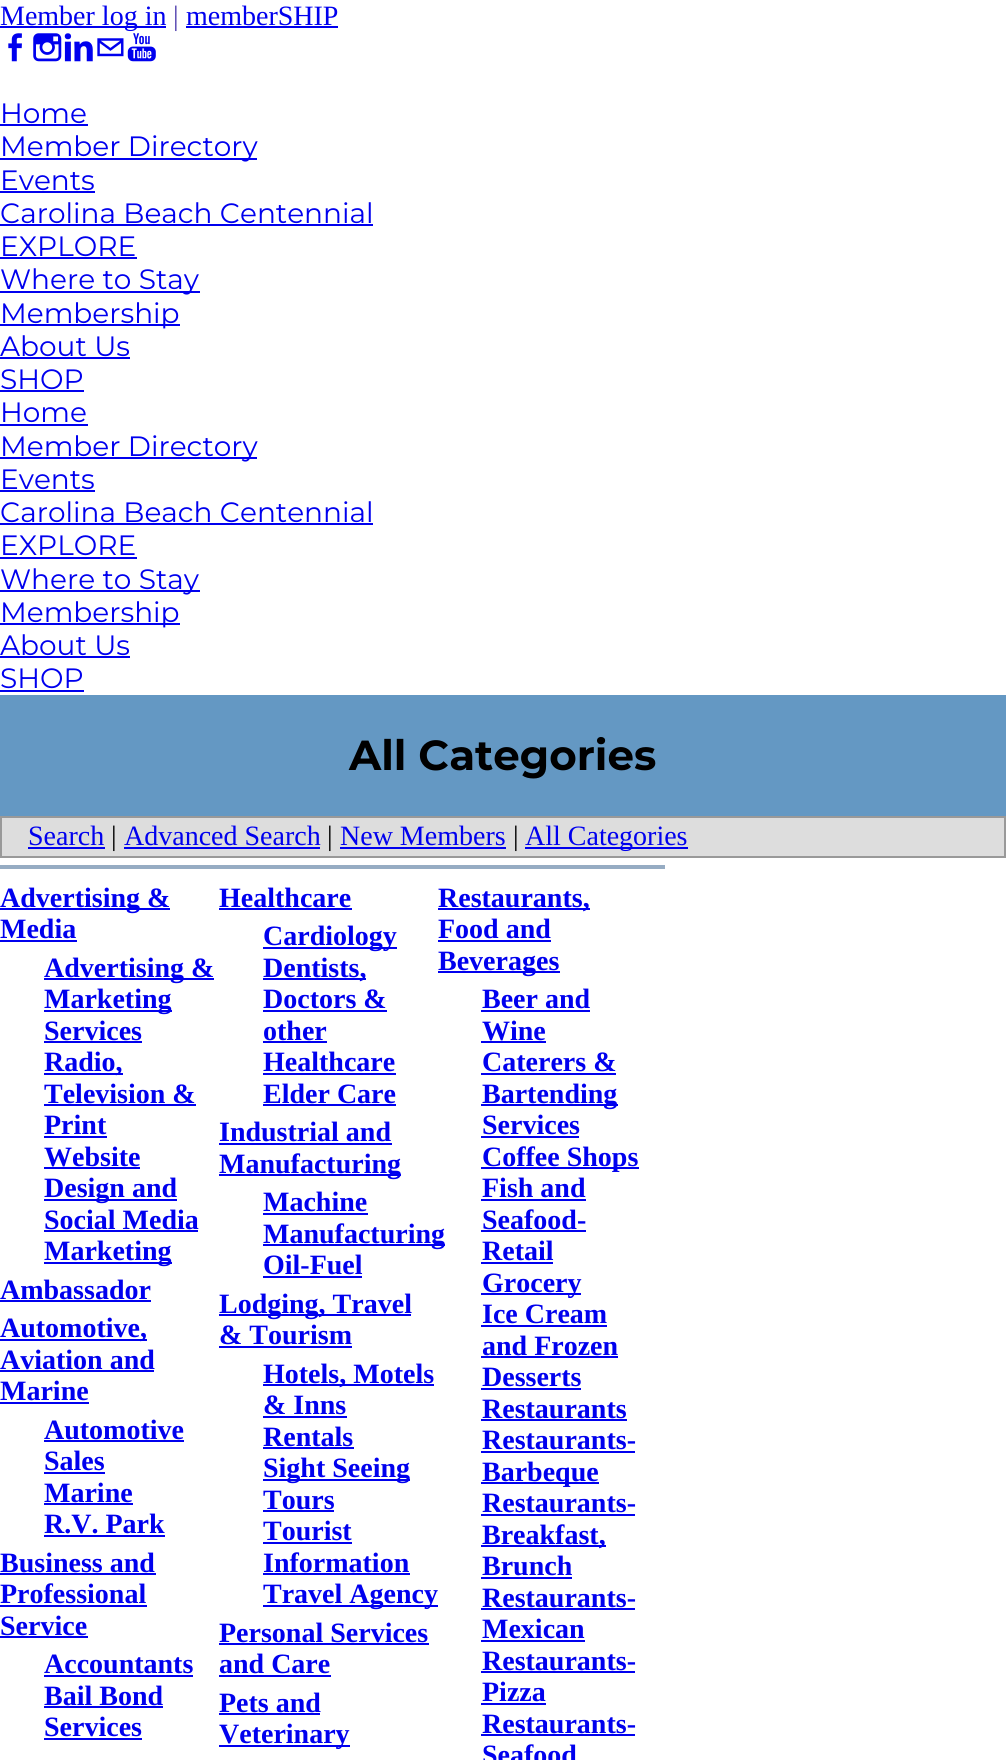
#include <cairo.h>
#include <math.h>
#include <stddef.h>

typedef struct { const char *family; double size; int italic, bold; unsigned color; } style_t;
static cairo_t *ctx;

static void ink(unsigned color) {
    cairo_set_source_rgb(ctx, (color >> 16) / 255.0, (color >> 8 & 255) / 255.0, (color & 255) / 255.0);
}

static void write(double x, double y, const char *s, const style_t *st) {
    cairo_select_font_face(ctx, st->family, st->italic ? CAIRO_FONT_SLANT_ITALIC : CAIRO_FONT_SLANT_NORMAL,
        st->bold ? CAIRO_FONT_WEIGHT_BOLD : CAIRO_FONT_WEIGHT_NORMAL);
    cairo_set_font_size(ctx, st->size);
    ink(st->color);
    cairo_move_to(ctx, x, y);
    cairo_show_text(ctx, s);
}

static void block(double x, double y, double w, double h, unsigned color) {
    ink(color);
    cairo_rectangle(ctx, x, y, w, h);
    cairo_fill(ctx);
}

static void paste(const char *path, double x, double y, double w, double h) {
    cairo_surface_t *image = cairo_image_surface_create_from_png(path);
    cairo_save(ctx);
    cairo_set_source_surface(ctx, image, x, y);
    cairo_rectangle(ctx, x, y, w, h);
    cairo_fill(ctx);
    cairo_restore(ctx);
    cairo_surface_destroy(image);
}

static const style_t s1 = {"Liberation Serif", 28, 0, 0, 0x0000ee};
static const style_t s2 = {"Liberation Serif", 28, 0, 0, 0x5040ae};
static const style_t s3 = {"Montserrat Thin", 28, 0, 0, 0x0000ee};
static const style_t s4 = {"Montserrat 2 Thin", 42, 0, 0, 0x000000};
static const style_t s5 = {"Liberation Serif", 28, 0, 0, 0x000000};
static const style_t s6 = {"Liberation Serif", 28, 0, 1, 0x0000ee};

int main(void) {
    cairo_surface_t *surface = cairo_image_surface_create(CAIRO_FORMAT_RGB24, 1006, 1760);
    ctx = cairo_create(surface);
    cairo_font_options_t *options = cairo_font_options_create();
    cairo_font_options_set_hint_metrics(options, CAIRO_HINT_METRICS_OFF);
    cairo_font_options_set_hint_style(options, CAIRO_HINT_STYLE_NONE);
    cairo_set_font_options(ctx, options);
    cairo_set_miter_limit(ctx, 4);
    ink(0xffffff);
    cairo_paint(ctx);
    block(0, 26, 166, 2, 0x0000ee);
    write(0, 25, "Member log in", &s1);
    write(173, 25, "|", &s2);
    write(186, 25, "memberSHIP", &s1);
    block(186, 26, 152, 2, 0x0000ee);
    paste("pic1.png", 8, 33, 14, 29);
    paste("pic2.png", 33, 33, 29, 29);
    paste("pic3.png", 64, 33, 29, 29);
    paste("pic4.png", 97, 38, 27, 19);
    paste("pic5.png", 127, 33, 29, 29);
    write(0, 123, "Home", &s3);
    block(0, 124, 88, 2, 0x0000ee);
    block(0, 158, 257, 2, 0x0000ee);
    write(0, 156, "Member Directory", &s3);
    write(0, 190, "Events", &s3);
    block(0, 191, 95, 2, 0x0000ee);
    write(0, 223, "Carolina Beach Centennial", &s3);
    block(0, 224, 373, 2, 0x0000ee);
    write(0, 256, "EXPLORE", &s3);
    block(0, 257, 137, 2, 0x0000ee);
    block(0, 291, 200, 2, 0x0000ee);
    write(0, 289, "Where to Stay", &s3);
    block(0, 324, 180, 2, 0x0000ee);
    write(0, 323, "Membership", &s3);
    write(0, 356, "About Us", &s3);
    block(0, 357, 130, 2, 0x0000ee);
    write(0, 389, "SHOP", &s3);
    block(0, 390, 84, 2, 0x0000ee);
    write(0, 422, "Home", &s3);
    block(0, 424, 88, 2, 0x0000ee);
    block(0, 457, 257, 2, 0x0000ee);
    write(0, 456, "Member Directory", &s3);
    write(0, 489, "Events", &s3);
    block(0, 490, 95, 2, 0x0000ee);
    write(0, 522, "Carolina Beach Centennial", &s3);
    block(0, 523, 373, 2, 0x0000ee);
    write(0, 555, "EXPLORE", &s3);
    block(0, 557, 137, 2, 0x0000ee);
    block(0, 590, 200, 2, 0x0000ee);
    write(0, 589, "Where to Stay", &s3);
    block(0, 623, 180, 2, 0x0000ee);
    write(0, 622, "Membership", &s3);
    write(0, 655, "About Us", &s3);
    block(0, 656, 130, 2, 0x0000ee);
    write(0, 688, "SHOP", &s3);
    block(0, 690, 84, 2, 0x0000ee);
    block(0, 695, 1006, 121, 0x6498c3);
    write(349, 770, "All Categories", &s4);
    ink(0xdddddd);
    cairo_rectangle(ctx, 1, 817, 1004, 40);
    cairo_fill_preserve(ctx);
    ink(0x999999);
    cairo_stroke(ctx);
    write(28, 845, "Search", &s1);
    block(28, 847, 77, 2, 0x0000ee);
    write(111, 845, "|", &s5);
    write(124, 845, "Advanced Search", &s1);
    block(124, 847, 196, 2, 0x0000ee);
    write(327, 845, "|", &s5);
    write(340, 845, "New Members", &s1);
    block(340, 847, 166, 2, 0x0000ee);
    write(513, 845, "|", &s5);
    block(525, 847, 163, 2, 0x0000ee);
    write(525, 845, "All Categories", &s1);
    block(0, 865, 665, 4, 0x96acc3);
    block(0, 908, 170, 2, 0x0000ee);
    write(0, 907, "Advertising &", &s6);
    write(0, 938, "Media", &s6);
    block(0, 940, 77, 2, 0x0000ee);
    block(44, 978, 170, 2, 0x0000ee);
    write(44, 977, "Advertising &", &s6);
    block(44, 1010, 128, 2, 0x0000ee);
    write(44, 1008, "Marketing", &s6);
    write(44, 1040, "Services", &s6);
    block(44, 1041, 98, 2, 0x0000ee);
    block(44, 1073, 79, 2, 0x0000ee);
    write(44, 1071, "Radio,", &s6);
    write(44, 1103, "Television &", &s6);
    block(44, 1104, 152, 2, 0x0000ee);
    write(44, 1134, "Print", &s6);
    block(44, 1136, 63, 2, 0x0000ee);
    write(44, 1166, "Website", &s6);
    block(44, 1167, 96, 2, 0x0000ee);
    block(44, 1199, 133, 2, 0x0000ee);
    write(44, 1197, "Design and", &s6);
    write(44, 1229, "Social Media", &s6);
    block(44, 1230, 154, 2, 0x0000ee);
    block(44, 1262, 128, 2, 0x0000ee);
    write(44, 1260, "Marketing", &s6);
    write(0, 1299, "Ambassador", &s6);
    block(0, 1300, 151, 2, 0x0000ee);
    block(0, 1339, 147, 2, 0x0000ee);
    write(0, 1337, "Automotive,", &s6);
    write(0, 1369, "Aviation and", &s6);
    block(0, 1370, 154, 2, 0x0000ee);
    write(0, 1400, "Marine", &s6);
    block(0, 1402, 89, 2, 0x0000ee);
    write(44, 1439, "Automotive", &s6);
    block(44, 1440, 140, 2, 0x0000ee);
    write(44, 1470, "Sales", &s6);
    block(44, 1472, 61, 2, 0x0000ee);
    write(44, 1502, "Marine", &s6);
    block(44, 1503, 89, 2, 0x0000ee);
    write(44, 1533, "R.V. Park", &s6);
    block(44, 1535, 121, 2, 0x0000ee);
    write(0, 1572, "Business and", &s6);
    block(0, 1573, 156, 2, 0x0000ee);
    write(0, 1603, "Professional", &s6);
    block(0, 1605, 147, 2, 0x0000ee);
    write(0, 1635, "Service", &s6);
    block(0, 1636, 88, 2, 0x0000ee);
    write(44, 1673, "Accountants", &s6);
    block(44, 1675, 149, 2, 0x0000ee);
    write(44, 1705, "Bail Bond", &s6);
    block(44, 1706, 119, 2, 0x0000ee);
    write(44, 1736, "Services", &s6);
    block(44, 1738, 98, 2, 0x0000ee);
    write(219, 907, "Healthcare", &s6);
    block(219, 908, 133, 2, 0x0000ee);
    block(263, 947, 134, 2, 0x0000ee);
    write(263, 945, "Cardiology", &s6);
    block(263, 978, 103, 2, 0x0000ee);
    write(263, 977, "Dentists,", &s6);
    write(263, 1008, "Doctors &", &s6);
    block(263, 1010, 124, 2, 0x0000ee);
    write(263, 1040, "other", &s6);
    block(263, 1041, 64, 2, 0x0000ee);
    write(263, 1071, "Healthcare", &s6);
    block(263, 1073, 133, 2, 0x0000ee);
    write(263, 1103, "Elder Care", &s6);
    block(263, 1104, 133, 2, 0x0000ee);
    write(219, 1141, "Industrial and", &s6);
    block(219, 1143, 173, 2, 0x0000ee);
    block(219, 1174, 182, 2, 0x0000ee);
    write(219, 1173, "Manufacturing", &s6);
    write(263, 1211, "Machine", &s6);
    block(263, 1213, 105, 2, 0x0000ee);
    block(263, 1244, 182, 2, 0x0000ee);
    write(263, 1243, "Manufacturing", &s6);
    write(263, 1274, "Oil-Fuel", &s6);
    block(263, 1276, 99, 2, 0x0000ee);
    block(219, 1314, 192, 2, 0x0000ee);
    write(219, 1313, "Lodging, Travel", &s6);
    write(219, 1344, "& Tourism", &s6);
    block(219, 1346, 133, 2, 0x0000ee);
    block(263, 1384, 171, 2, 0x0000ee);
    write(263, 1383, "Hotels, Motels", &s6);
    write(263, 1414, "& Inns", &s6);
    block(263, 1416, 84, 2, 0x0000ee);
    write(263, 1446, "Rentals", &s6);
    block(263, 1447, 91, 2, 0x0000ee);
    block(263, 1479, 147, 2, 0x0000ee);
    write(263, 1477, "Sight Seeing", &s6);
    write(263, 1509, "Tours", &s6);
    block(263, 1510, 71, 2, 0x0000ee);
    write(263, 1540, "Tourist", &s6);
    block(263, 1542, 89, 2, 0x0000ee);
    write(263, 1572, "Information", &s6);
    block(263, 1573, 147, 2, 0x0000ee);
    block(263, 1605, 175, 2, 0x0000ee);
    write(263, 1603, "Travel Agency", &s6);
    write(219, 1642, "Personal Services", &s6);
    block(219, 1643, 210, 2, 0x0000ee);
    write(219, 1673, "and Care", &s6);
    block(219, 1675, 112, 2, 0x0000ee);
    write(219, 1712, "Pets and", &s6);
    block(219, 1713, 101, 2, 0x0000ee);
    block(219, 1745, 131, 2, 0x0000ee);
    write(219, 1743, "Veterinary", &s6);
    block(438, 908, 152, 2, 0x0000ee);
    write(438, 907, "Restaurants,", &s6);
    write(438, 938, "Food and", &s6);
    block(438, 940, 113, 2, 0x0000ee);
    block(438, 971, 122, 2, 0x0000ee);
    write(438, 970, "Beverages", &s6);
    write(482, 1008, "Beer and", &s6);
    block(481, 1010, 109, 2, 0x0000ee);
    write(482, 1040, "Wine", &s6);
    block(481, 1041, 65, 2, 0x0000ee);
    write(482, 1071, "Caterers &", &s6);
    block(481, 1073, 135, 2, 0x0000ee);
    block(481, 1104, 137, 2, 0x0000ee);
    write(482, 1103, "Bartending", &s6);
    write(482, 1134, "Services", &s6);
    block(481, 1136, 98, 2, 0x0000ee);
    block(481, 1167, 158, 2, 0x0000ee);
    write(482, 1166, "Coffee Shops", &s6);
    write(482, 1197, "Fish and", &s6);
    block(481, 1199, 105, 2, 0x0000ee);
    write(482, 1229, "Seafood-", &s6);
    block(481, 1230, 105, 2, 0x0000ee);
    write(482, 1260, "Retail", &s6);
    block(481, 1262, 72, 2, 0x0000ee);
    block(481, 1293, 100, 2, 0x0000ee);
    write(482, 1292, "Grocery", &s6);
    write(482, 1323, "Ice Cream", &s6);
    block(481, 1325, 126, 2, 0x0000ee);
    write(482, 1355, "and Frozen", &s6);
    block(481, 1356, 137, 2, 0x0000ee);
    write(482, 1386, "Desserts", &s6);
    block(481, 1388, 100, 2, 0x0000ee);
    write(482, 1418, "Restaurants", &s6);
    block(481, 1419, 146, 2, 0x0000ee);
    write(482, 1449, "Restaurants-", &s6);
    block(481, 1451, 154, 2, 0x0000ee);
    block(481, 1482, 118, 2, 0x0000ee);
    write(482, 1481, "Barbeque", &s6);
    write(482, 1512, "Restaurants-", &s6);
    block(481, 1514, 154, 2, 0x0000ee);
    block(481, 1545, 125, 2, 0x0000ee);
    write(482, 1544, "Breakfast,", &s6);
    write(482, 1575, "Brunch", &s6);
    block(481, 1577, 91, 2, 0x0000ee);
    write(482, 1607, "Restaurants-", &s6);
    block(481, 1608, 154, 2, 0x0000ee);
    write(482, 1638, "Mexican", &s6);
    block(481, 1640, 104, 2, 0x0000ee);
    write(482, 1670, "Restaurants-", &s6);
    block(481, 1671, 154, 2, 0x0000ee);
    write(482, 1701, "Pizza", &s6);
    block(481, 1703, 65, 2, 0x0000ee);
    write(482, 1733, "Restaurants-", &s6);
    block(481, 1734, 154, 2, 0x0000ee);
    write(482, 1764, "Seafood", &s6);
    cairo_surface_write_to_png(surface, "screenshot.png");
    cairo_font_options_destroy(options);
    cairo_destroy(ctx);
    cairo_surface_destroy(surface);
    return 0;
}
